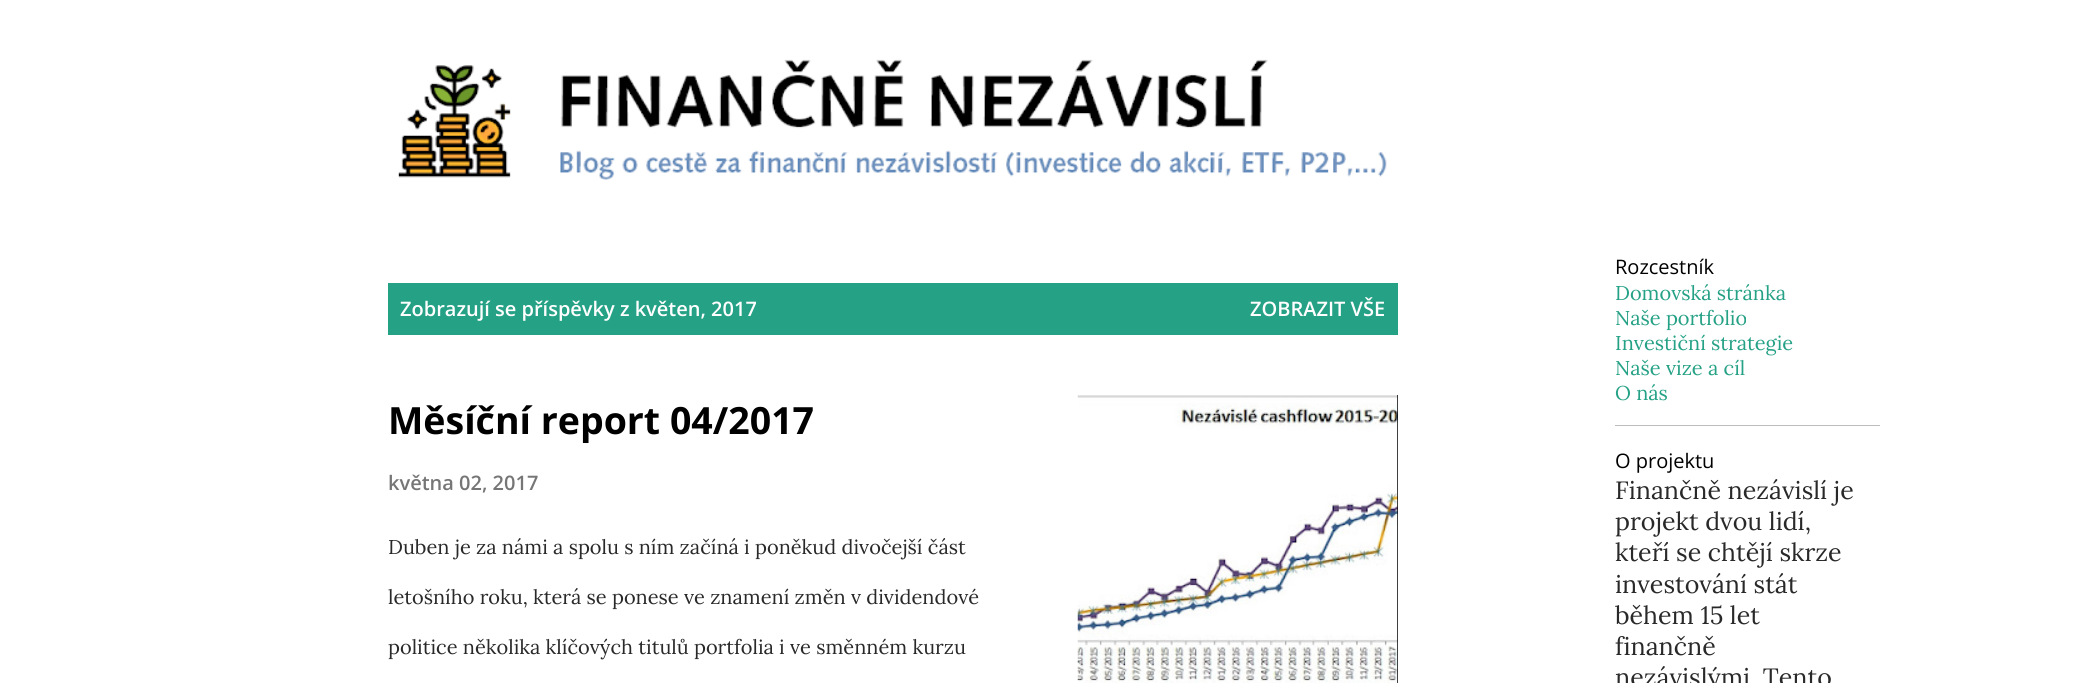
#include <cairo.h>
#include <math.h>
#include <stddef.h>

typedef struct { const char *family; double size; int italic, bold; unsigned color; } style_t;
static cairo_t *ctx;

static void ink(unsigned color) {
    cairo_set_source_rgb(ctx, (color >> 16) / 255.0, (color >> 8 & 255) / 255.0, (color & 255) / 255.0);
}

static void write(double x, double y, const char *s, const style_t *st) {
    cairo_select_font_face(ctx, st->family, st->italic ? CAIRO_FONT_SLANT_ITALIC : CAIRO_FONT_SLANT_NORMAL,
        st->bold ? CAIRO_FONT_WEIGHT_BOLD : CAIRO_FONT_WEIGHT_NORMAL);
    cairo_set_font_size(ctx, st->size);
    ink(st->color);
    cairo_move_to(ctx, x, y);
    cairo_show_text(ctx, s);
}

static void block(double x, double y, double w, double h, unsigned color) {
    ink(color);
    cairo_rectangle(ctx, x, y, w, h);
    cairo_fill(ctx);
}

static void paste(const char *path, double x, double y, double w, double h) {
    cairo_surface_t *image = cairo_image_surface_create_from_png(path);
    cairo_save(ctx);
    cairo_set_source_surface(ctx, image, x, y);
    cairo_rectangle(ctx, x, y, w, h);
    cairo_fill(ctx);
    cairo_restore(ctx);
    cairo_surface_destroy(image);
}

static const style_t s1 = {"Open Sans SemiBold", 20, 0, 0, 0xffffff};
static const style_t s2 = {"Open Sans", 37.5, 0, 1, 0x000000};
static const style_t s3 = {"Open Sans SemiBold", 20, 0, 0, 0x767676};
static const style_t s4 = {"Lora", 20, 0, 0, 0x292929};
static const style_t s5 = {"Open Sans", 20, 0, 0, 0x000000};
static const style_t s6 = {"Lora", 20, 0, 0, 0x25a186};
static const style_t s7 = {"Lora", 25, 0, 0, 0x292929};

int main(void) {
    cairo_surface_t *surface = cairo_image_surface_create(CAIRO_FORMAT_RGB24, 2097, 683);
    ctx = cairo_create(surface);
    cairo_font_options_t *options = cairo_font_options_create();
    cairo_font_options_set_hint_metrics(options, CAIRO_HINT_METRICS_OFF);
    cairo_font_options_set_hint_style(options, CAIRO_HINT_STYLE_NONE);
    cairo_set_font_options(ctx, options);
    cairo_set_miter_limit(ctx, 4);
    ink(0xffffff);
    cairo_paint(ctx);
    paste("pic1.png", 398, 59, 989, 121);
    block(388, 283, 1010, 52, 0x25a186);
    write(400, 316, "Zobrazují se příspěvky z květen, 2017", &s1);
    write(1250, 316, "ZOBRAZIT VŠE", &s1);
    write(388, 434, "Měsíční report 04/2017", &s2);
    write(388, 490, "května 02, 2017", &s3);
    write(388, 554, "Duben je za námi a spolu s ním začíná i poněkud divočejší část", &s4);
    write(388, 604, "letošního roku, která se ponese ve znamení změn v dividendové", &s4);
    write(388, 654, "politice několika klíčových titulů portfolia i ve směnném kurzu", &s4);
    block(1397, 395, 1, 288, 0x000000);
    paste("pic2.png", 1077, 395, 321, 288);
    write(1615, 274, "Rozcestník", &s5);
    write(1615, 300, "Domovská stránka", &s6);
    write(1615, 325, "Naše portfolio", &s6);
    write(1615, 350, "Investiční strategie", &s6);
    write(1615, 375, "Naše vize a cíl", &s6);
    write(1615, 400, "O nás", &s6);
    block(1615, 425, 265, 1, 0xbdbdbd);
    write(1615, 468, "O projektu", &s5);
    write(1615, 499, "Finančně nezávislí je", &s7);
    write(1615, 530, "projekt dvou lidí,", &s7);
    write(1615, 561, "kteří se chtějí skrze", &s7);
    write(1615, 593, "investování stát", &s7);
    write(1615, 624, "během 15 let", &s7);
    write(1615, 655, "finančně", &s7);
    write(1615, 686, "nezávislými. Tento", &s7);
    cairo_surface_write_to_png(surface, "screenshot.png");
    cairo_font_options_destroy(options);
    cairo_destroy(ctx);
    cairo_surface_destroy(surface);
    return 0;
}
